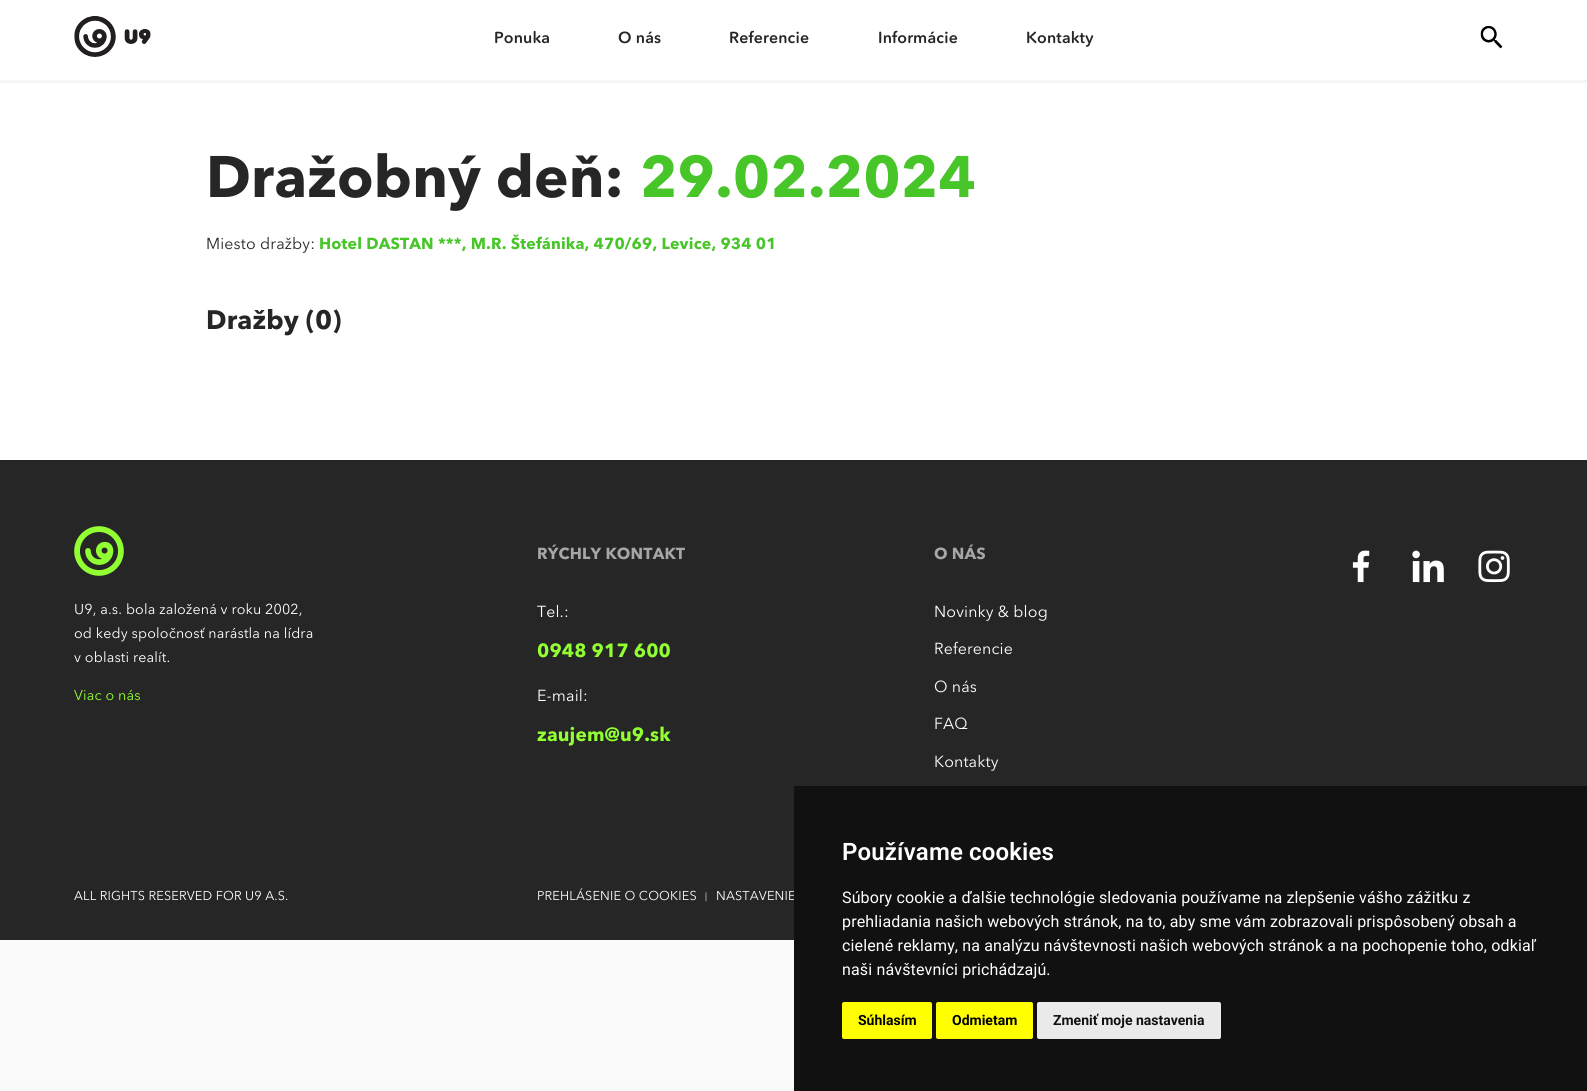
#include <cairo.h>
#include <math.h>
#include <stddef.h>

typedef struct { const char *family; double size; int italic, bold; unsigned color; } style_t;
static cairo_t *ctx;

static void ink(unsigned color) {
    cairo_set_source_rgb(ctx, (color >> 16) / 255.0, (color >> 8 & 255) / 255.0, (color & 255) / 255.0);
}

static void write(double x, double y, const char *s, const style_t *st) {
    cairo_select_font_face(ctx, st->family, st->italic ? CAIRO_FONT_SLANT_ITALIC : CAIRO_FONT_SLANT_NORMAL,
        st->bold ? CAIRO_FONT_WEIGHT_BOLD : CAIRO_FONT_WEIGHT_NORMAL);
    cairo_set_font_size(ctx, st->size);
    ink(st->color);
    cairo_move_to(ctx, x, y);
    cairo_show_text(ctx, s);
}

static void write_spaced(double x, double y, const char *s, double letter, double word) {
    cairo_move_to(ctx, x, y);
    while (*s) {
        char ch[5] = {0};
        int n = 0;
        do ch[n++] = *s++; while ((*s & 0xC0) == 0x80);
        cairo_show_text(ctx, ch);
        cairo_rel_move_to(ctx, letter + word * (*ch == ' '), 0);
    }
}

static void block(double x, double y, double w, double h, unsigned color) {
    ink(color);
    cairo_rectangle(ctx, x, y, w, h);
    cairo_fill(ctx);
}

static void round_path(double x, double y, double w, double h, double r) {
    cairo_new_sub_path(ctx);
    cairo_arc(ctx, x + w - r, y + h - r, r, 0, M_PI / 2);
    cairo_arc(ctx, x + r, y + h - r, r, M_PI / 2, M_PI);
    cairo_arc(ctx, x + r, y + r, r, M_PI, 1.5 * M_PI);
    cairo_arc(ctx, x + w - r, y + r, r, 1.5 * M_PI, 2 * M_PI);
    cairo_close_path(ctx);
}

static void paste(const char *path, double x, double y, double w, double h) {
    cairo_surface_t *image = cairo_image_surface_create_from_png(path);
    cairo_save(ctx);
    cairo_set_source_surface(ctx, image, x, y);
    cairo_rectangle(ctx, x, y, w, h);
    cairo_fill(ctx);
    cairo_restore(ctx);
    cairo_surface_destroy(image);
}

static const style_t s1 = {"Roboto", 14, 0, 1, 0x000000};
static const style_t s2 = {"Roboto", 14, 0, 1, 0x111111};

int main(void) {
    cairo_surface_t *surface = cairo_image_surface_create(CAIRO_FORMAT_RGB24, 1587, 1091);
    ctx = cairo_create(surface);
    cairo_font_options_t *options = cairo_font_options_create();
    cairo_font_options_set_hint_metrics(options, CAIRO_HINT_METRICS_OFF);
    cairo_font_options_set_hint_style(options, CAIRO_HINT_STYLE_NONE);
    cairo_set_font_options(ctx, options);
    cairo_set_miter_limit(ctx, 4);
    ink(0xfafafa);
    cairo_paint(ctx);
    block(0, 0, 1587, 460, 0xffffff);
    block(0, 80, 1587, 3, 0xf5f5f5);
    paste("pic1.png", 74, 16, 77, 41);
    cairo_select_font_face(ctx, "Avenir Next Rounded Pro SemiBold", CAIRO_FONT_SLANT_NORMAL, CAIRO_FONT_WEIGHT_NORMAL);
    cairo_set_font_size(ctx, 15.9);
    ink(0x262626);
    write_spaced(494, 43, "Ponuka", 0.15, 0);
    write_spaced(618, 43, "O nás", 0.15, 0);
    write_spaced(729, 43, "Referencie", 0.15, 0);
    write_spaced(878, 43, "Informácie", 0.15, 0);
    write_spaced(1026, 43, "Kontakty", 0.15, 0);
    paste("pic2.png", 1480, 25, 23, 24);
    cairo_select_font_face(ctx, "Avenir Next", CAIRO_FONT_SLANT_NORMAL, CAIRO_FONT_WEIGHT_BOLD);
    cairo_set_font_size(ctx, 58);
    write_spaced(206, 197, "Dražobný deň:", 0.15, 0);
    ink(0x47c529);
    write_spaced(640, 197, "29.02.2024", 0.15, 0);
    cairo_select_font_face(ctx, "Avenir Next", CAIRO_FONT_SLANT_NORMAL, CAIRO_FONT_WEIGHT_NORMAL);
    cairo_set_font_size(ctx, 15.9);
    ink(0x262626);
    write_spaced(206, 249, "Miesto dražby:", 0.15, 0);
    cairo_select_font_face(ctx, "Avenir Next", CAIRO_FONT_SLANT_NORMAL, CAIRO_FONT_WEIGHT_BOLD);
    ink(0x47c529);
    write_spaced(319, 249, "Hotel DASTAN ***, M.R. Štefánika, 470/69, Levice, 934 01", 0.15, 0);
    cairo_set_font_size(ctx, 26.5);
    ink(0x262626);
    write_spaced(206, 329, "Dražby (0)", 0.15, 0);
    block(0, 460, 1587, 393, 0x262626);
    cairo_set_font_size(ctx, 15.9);
    ink(0xa6a6a6);
    write_spaced(537, 559, "RÝCHLY KONTAKT", 0.15, 0);
    cairo_select_font_face(ctx, "Avenir Next", CAIRO_FONT_SLANT_NORMAL, CAIRO_FONT_WEIGHT_NORMAL);
    ink(0xffffff);
    write_spaced(537, 617, "Tel.:", 0.15, 0);
    cairo_select_font_face(ctx, "Avenir Next", CAIRO_FONT_SLANT_NORMAL, CAIRO_FONT_WEIGHT_BOLD);
    cairo_set_font_size(ctx, 19);
    ink(0x92ff33);
    write_spaced(537, 657, "0948 917 600", 0.15, 0);
    cairo_select_font_face(ctx, "Avenir Next", CAIRO_FONT_SLANT_NORMAL, CAIRO_FONT_WEIGHT_NORMAL);
    cairo_set_font_size(ctx, 15.9);
    ink(0xffffff);
    write_spaced(537, 701, "E-mail:", 0.15, 0);
    cairo_select_font_face(ctx, "Avenir Next", CAIRO_FONT_SLANT_NORMAL, CAIRO_FONT_WEIGHT_BOLD);
    cairo_set_font_size(ctx, 19);
    ink(0x92ff33);
    write_spaced(537, 741, "zaujem@u9.sk", 0.15, 0);
    cairo_set_font_size(ctx, 15.9);
    ink(0xa6a6a6);
    write_spaced(934, 559, "O NÁS", 0.15, 0);
    cairo_select_font_face(ctx, "Avenir Next", CAIRO_FONT_SLANT_NORMAL, CAIRO_FONT_WEIGHT_NORMAL);
    ink(0xffffff);
    write_spaced(934, 617, "Novinky & blog", 0.15, 0);
    write_spaced(934, 654, "Referencie", 0.15, 0);
    write_spaced(934, 692, "O nás", 0.15, 0);
    write_spaced(934, 729, "FAQ", 0.15, 0);
    write_spaced(934, 767, "Kontakty", 0.15, 0);
    paste("pic3.png", 1352, 550, 18, 33);
    paste("pic4.png", 1412, 550, 32, 33);
    paste("pic5.png", 1478, 550, 32, 33);
    paste("pic6.png", 74, 526, 50, 50);
    cairo_set_font_size(ctx, 14.25);
    write_spaced(74, 614, "U9, a.s. bola založená v roku 2002,", 0.15, 0);
    write_spaced(74, 638, "od kedy spoločnosť narástla na lídra", 0.15, 0);
    write_spaced(74, 662, "v oblasti realít.", 0.15, 0);
    ink(0x92ff33);
    write_spaced(74, 700, "Viac o nás", 0.15, 0);
    block(0, 853, 794, 87, 0x262626);
    cairo_set_font_size(ctx, 12.75);
    ink(0xffffff);
    write_spaced(74, 900, "ALL RIGHTS RESERVED FOR U9 A.S.", 0.15, 0);
    write_spaced(537, 900, "PREHLÁSENIE O COOKIES", 0.15, 0);
    cairo_set_font_size(ctx, 9);
    write_spaced(705, 899, "|", 0.15, 0);
    cairo_set_font_size(ctx, 12.75);
    write_spaced(716, 900, "NASTAVENIE", 0.15, 0);
    block(794, 786, 793, 305, 0x111111);
    cairo_select_font_face(ctx, "Roboto SemiBold", CAIRO_FONT_SLANT_NORMAL, CAIRO_FONT_WEIGHT_NORMAL);
    cairo_set_font_size(ctx, 24);
    ink(0xffffff);
    write_spaced(842, 860, "Používame cookies", 0.15, 0);
    cairo_select_font_face(ctx, "Roboto", CAIRO_FONT_SLANT_NORMAL, CAIRO_FONT_WEIGHT_NORMAL);
    cairo_set_font_size(ctx, 16);
    write_spaced(842, 903, "Súbory cookie a ďalšie technológie sledovania používame na zlepšenie vášho zážitku z", 0.15, 0);
    write_spaced(842, 927, "prehliadania našich webových stránok, na to, aby sme vám zobrazovali prispôsobený obsah a", 0.15, 0);
    write_spaced(842, 951, "cielené reklamy, na analýzu návštevnosti našich webových stránok a na pochopenie toho, odkiaľ", 0.15, 0);
    write_spaced(842, 975, "naši návštevníci prichádzajú.", 0.15, 0);
    ink(0xffff00);
    round_path(842, 1002, 90, 37, 2);
    cairo_fill(ctx);
    write(858, 1025, "Súhlasím", &s1);
    ink(0xffff00);
    round_path(936, 1002, 97, 37, 2);
    cairo_fill(ctx);
    write(952, 1025, "Odmietam", &s1);
    ink(0xeaeaea);
    round_path(1037, 1002, 184, 37, 2);
    cairo_fill(ctx);
    write(1053, 1025, "Zmeniť moje nastavenia", &s2);
    cairo_surface_write_to_png(surface, "screenshot.png");
    cairo_font_options_destroy(options);
    cairo_destroy(ctx);
    cairo_surface_destroy(surface);
    return 0;
}
